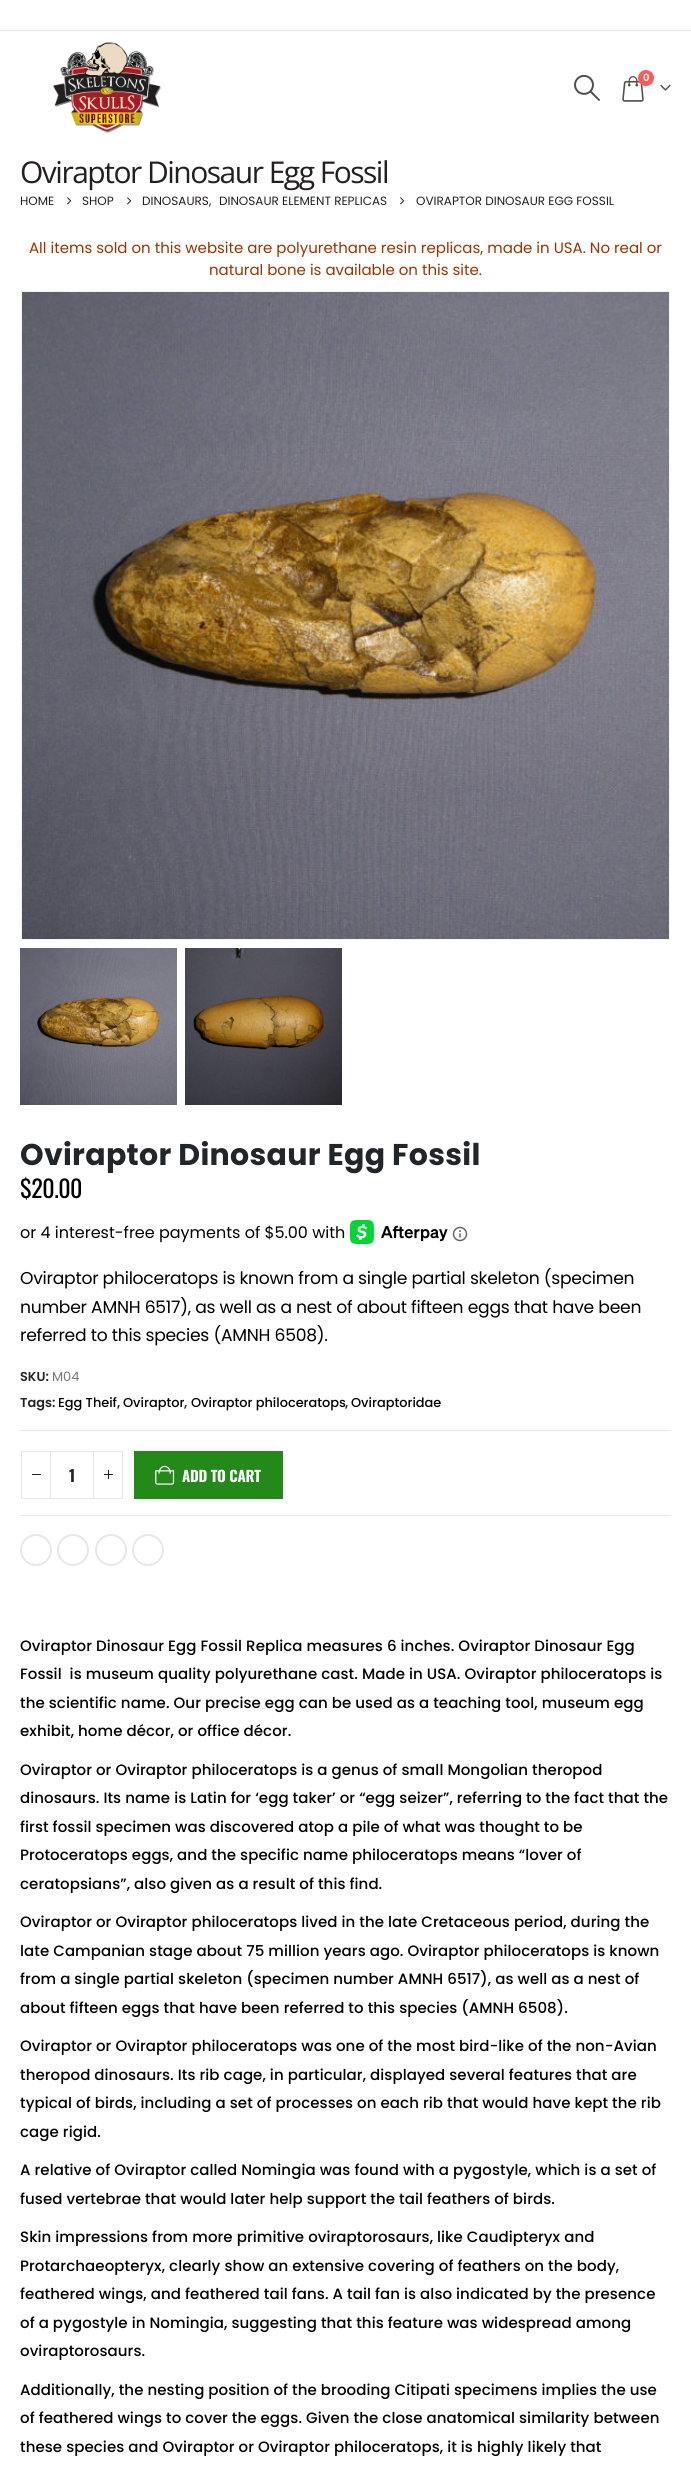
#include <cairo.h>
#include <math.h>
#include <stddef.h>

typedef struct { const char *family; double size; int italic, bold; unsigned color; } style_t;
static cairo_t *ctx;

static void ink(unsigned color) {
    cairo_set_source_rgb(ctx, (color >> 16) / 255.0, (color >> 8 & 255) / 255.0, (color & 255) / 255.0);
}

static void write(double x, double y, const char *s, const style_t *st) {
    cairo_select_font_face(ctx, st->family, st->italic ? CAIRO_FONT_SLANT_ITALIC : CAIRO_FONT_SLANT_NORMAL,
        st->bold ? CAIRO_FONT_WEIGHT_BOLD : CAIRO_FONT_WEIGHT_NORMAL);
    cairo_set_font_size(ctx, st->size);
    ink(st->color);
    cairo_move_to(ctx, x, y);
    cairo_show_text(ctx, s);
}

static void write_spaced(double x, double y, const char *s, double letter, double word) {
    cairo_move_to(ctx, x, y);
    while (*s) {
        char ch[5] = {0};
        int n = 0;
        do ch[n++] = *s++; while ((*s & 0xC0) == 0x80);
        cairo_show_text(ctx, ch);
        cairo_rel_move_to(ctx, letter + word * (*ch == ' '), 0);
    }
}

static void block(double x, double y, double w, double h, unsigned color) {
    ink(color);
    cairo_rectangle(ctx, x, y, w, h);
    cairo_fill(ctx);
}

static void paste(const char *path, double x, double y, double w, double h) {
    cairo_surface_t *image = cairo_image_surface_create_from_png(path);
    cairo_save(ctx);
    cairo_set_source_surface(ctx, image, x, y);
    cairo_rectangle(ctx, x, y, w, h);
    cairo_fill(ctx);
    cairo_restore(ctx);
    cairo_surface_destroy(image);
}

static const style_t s1 = {"Poppins SemiBold", 10, 0, 0, 0xffffff};
static const style_t s2 = {"Poppins", 12, 0, 0, 0x231f20};
static const style_t s3 = {"Poppins", 15, 0, 0, 0x993300};
static const style_t s4 = {"Poppins", 16, 0, 0, 0x000000};
static const style_t s5 = {"Poppins SemiBold", 12.9, 0, 0, 0x222529};
static const style_t s6 = {"Poppins", 12.9, 0, 0, 0x777777};
static const style_t s7 = {"Poppins Medium", 12.9, 0, 0, 0x000000};
static const style_t s8 = {"Oswald", 16, 0, 1, 0x222529};

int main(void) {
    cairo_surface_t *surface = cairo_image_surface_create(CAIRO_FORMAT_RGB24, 691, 2470);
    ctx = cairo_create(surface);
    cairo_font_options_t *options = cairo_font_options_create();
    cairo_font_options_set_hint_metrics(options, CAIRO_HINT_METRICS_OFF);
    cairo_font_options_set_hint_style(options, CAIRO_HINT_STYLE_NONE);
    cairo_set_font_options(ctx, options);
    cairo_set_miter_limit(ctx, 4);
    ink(0xffffff);
    cairo_paint(ctx);
    block(0, 30, 691, 1, 0xe3e7e8);
    paste("pic1.png", 52, 42, 109, 91);
    paste("pic2.png", 574, 74, 26, 27);
    paste("pic3.png", 622, 76, 22, 26);
    ink(0xff5b5b);
    cairo_arc(ctx, 646, 78, 8, 0, 2 * M_PI);
    cairo_fill(ctx);
    write(643, 81, "0", &s1);
    paste("pic4.png", 660, 84, 11, 7);
    cairo_select_font_face(ctx, "Open Sans", CAIRO_FONT_SLANT_NORMAL, CAIRO_FONT_WEIGHT_NORMAL);
    cairo_set_font_size(ctx, 30);
    ink(0x231f20);
    write_spaced(20, 183, "Oviraptor Dinosaur Egg Fossil", -1.5, 0);
    write(20, 205, "HOME", &s2);
    paste("pic5.png", 67, 197, 5, 8);
    write(82, 205, "SHOP", &s2);
    paste("pic5.png", 127, 197, 5, 8);
    write(142, 205, "DINOSAURS,", &s2);
    write(219, 205, "DINOSAUR ELEMENT REPLICAS", &s2);
    paste("pic5.png", 400, 197, 5, 8);
    write(416, 205, "OVIRAPTOR DINOSAUR EGG FOSSIL", &s2);
    write(29, 253, "All items sold on this website are polyurethane resin replicas, made in USA. No real or", &s3);
    write(209, 275, "natural bone is available on this site.", &s3);
    cairo_rectangle(ctx, 21.5, 291.5, 648, 648);
    ink(0xf4f4f4);
    cairo_set_line_width(ctx, 1);
    cairo_stroke(ctx);
    paste("pic6.png", 22, 292, 647, 647);
    paste("pic7.png", 20, 948, 157, 157);
    paste("pic8.png", 185, 948, 157, 157);
    cairo_select_font_face(ctx, "Poppins", CAIRO_FONT_SLANT_NORMAL, CAIRO_FONT_WEIGHT_BOLD);
    cairo_set_font_size(ctx, 30);
    ink(0x222529);
    write_spaced(20, 1165, "Oviraptor Dinosaur Egg Fossil", 0.3, 0);
    cairo_select_font_face(ctx, "Oswald", CAIRO_FONT_SLANT_NORMAL, CAIRO_FONT_WEIGHT_NORMAL);
    cairo_set_font_size(ctx, 24);
    ink(0x000000);
    write_spaced(20, 1198, "$20.00", -0.5, 0);
    write(20, 1238, "or 4 interest-free payments of $5.00 with", &s4);
    paste("pic9.png", 350, 1220, 98, 24);
    paste("pic10.png", 452, 1226, 16, 16);
    cairo_set_font_size(ctx, 17.15);
    write_spaced(20, 1284, "Oviraptor philoceratops is known from a single partial skeleton (specimen", -0.25, 0);
    write_spaced(20, 1313, "number AMNH 6517), as well as a nest of about fifteen eggs that have been", -0.25, 0);
    write_spaced(20, 1341, "referred to this species (AMNH 6508).", -0.25, 0);
    write(20, 1381, "SKU:", &s5);
    write(52, 1381, "M04", &s6);
    write(20, 1407, "Tags:", &s5);
    write(58, 1407, "Egg Theif", &s7);
    write(117, 1407, ",", &s5);
    write(123, 1407, "Oviraptor", &s7);
    write(184, 1407, ",", &s5);
    write(191, 1407, "Oviraptor philoceratops", &s7);
    write(345, 1407, ",", &s5);
    write(351, 1407, "Oviraptoridae", &s7);
    block(20, 1430, 651, 1, 0xe7e7e7);
    block(20, 1515, 651, 1, 0xe7e7e7);
    block(50, 1451, 44, 1, 0xe7e7e7);
    block(50, 1498, 44, 1, 0xe7e7e7);
    cairo_rectangle(ctx, 21.5, 1451.5, 29, 47);
    cairo_stroke(ctx);
    block(32, 1474, 9, 1, 0x222529);
    write(69, 1482, "1", &s8);
    cairo_rectangle(ctx, 93.5, 1451.5, 29, 47);
    ink(0xe7e7e7);
    cairo_stroke(ctx);
    block(104, 1474, 9, 1, 0x222529);
    block(108, 1470, 1, 9, 0x222529);
    block(134, 1451, 149, 48, 0x238918);
    paste("pic11.png", 155, 1465, 20, 20);
    cairo_set_font_size(ctx, 15);
    ink(0xffffff);
    write_spaced(182, 1482, "ADD TO CART", -0.25, 0);
    cairo_new_path(ctx);
    cairo_arc(ctx, 36, 1550, 15, 0, 2 * M_PI);
    ink(0xe7e7e7);
    cairo_set_line_width(ctx, 2);
    cairo_stroke(ctx);
    cairo_arc(ctx, 73, 1550, 15, 0, 2 * M_PI);
    cairo_stroke(ctx);
    cairo_arc(ctx, 111, 1550, 15, 0, 2 * M_PI);
    cairo_stroke(ctx);
    cairo_arc(ctx, 148, 1550, 15, 0, 2 * M_PI);
    cairo_stroke(ctx);
    cairo_select_font_face(ctx, "Poppins Medium", CAIRO_FONT_SLANT_NORMAL, CAIRO_FONT_WEIGHT_NORMAL);
    ink(0x000000);
    write_spaced(20, 1651, "Oviraptor Dinosaur Egg Fossil Replica measures 6 inches. Oviraptor Dinosaur Egg", 0.07, 0);
    write_spaced(20, 1679, "Fossil  is museum quality polyurethane cast. Made in USA. Oviraptor philoceratops is", 0.07, 0);
    write_spaced(20, 1708, "the scientific name. Our precise egg can be used as a teaching tool, museum egg", 0.07, 0);
    write_spaced(20, 1736, "exhibit, home décor, or office décor.", 0.07, 0);
    write_spaced(20, 1775, "Oviraptor or Oviraptor philoceratops is a genus of small Mongolian theropod", 0.07, 0);
    write_spaced(20, 1803, "dinosaurs. Its name is Latin for ‘egg taker’ or “egg seizer”, referring to the fact that the", 0.07, 0);
    write_spaced(20, 1832, "first fossil specimen was discovered atop a pile of what was thought to be", 0.07, 0);
    write_spaced(20, 1860, "Protoceratops eggs, and the specific name philoceratops means “lover of", 0.07, 0);
    write_spaced(20, 1889, "ceratopsians”, also given as a result of this find.", 0.07, 0);
    write_spaced(20, 1927, "Oviraptor or Oviraptor philoceratops lived in the late Cretaceous period, during the", 0.07, 0);
    write_spaced(20, 1956, "late Campanian stage about 75 million years ago. Oviraptor philoceratops is known", 0.07, 0);
    write_spaced(20, 1984, "from a single partial skeleton (specimen number AMNH 6517), as well as a nest of", 0.07, 0);
    write_spaced(20, 2013, "about fifteen eggs that have been referred to this species (AMNH 6508).", 0.07, 0);
    write_spaced(20, 2051, "Oviraptor or Oviraptor philoceratops was one of the most bird-like of the non-Avian", 0.07, 0);
    write_spaced(20, 2080, "theropod dinosaurs. Its rib cage, in particular, displayed several features that are", 0.07, 0);
    write_spaced(20, 2108, "typical of birds, including a set of processes on each rib that would have kept the rib", 0.07, 0);
    write_spaced(20, 2137, "cage rigid.", 0.07, 0);
    write_spaced(20, 2175, "A relative of Oviraptor called Nomingia was found with a pygostyle, which is a set of", 0.07, 0);
    write_spaced(20, 2204, "fused vertebrae that would later help support the tail feathers of birds.", 0.07, 0);
    write_spaced(20, 2242, "Skin impressions from more primitive oviraptorosaurs, like Caudipteryx and", 0.07, 0);
    write_spaced(20, 2271, "Protarchaeopteryx, clearly show an extensive covering of feathers on the body,", 0.07, 0);
    write_spaced(20, 2299, "feathered wings, and feathered tail fans. A tail fan is also indicated by the presence", 0.07, 0);
    write_spaced(20, 2328, "of a pygostyle in Nomingia, suggesting that this feature was widespread among", 0.07, 0);
    write_spaced(20, 2356, "oviraptorosaurs.", 0.07, 0);
    write_spaced(20, 2395, "Additionally, the nesting position of the brooding Citipati specimens implies the use", 0.07, 0);
    write_spaced(20, 2423, "of feathered wings to cover the eggs. Given the close anatomical similarity between", 0.07, 0);
    write_spaced(20, 2452, "these species and Oviraptor or Oviraptor philoceratops, it is highly likely that", 0.07, 0);
    cairo_surface_write_to_png(surface, "screenshot.png");
    cairo_font_options_destroy(options);
    cairo_destroy(ctx);
    cairo_surface_destroy(surface);
    return 0;
}
